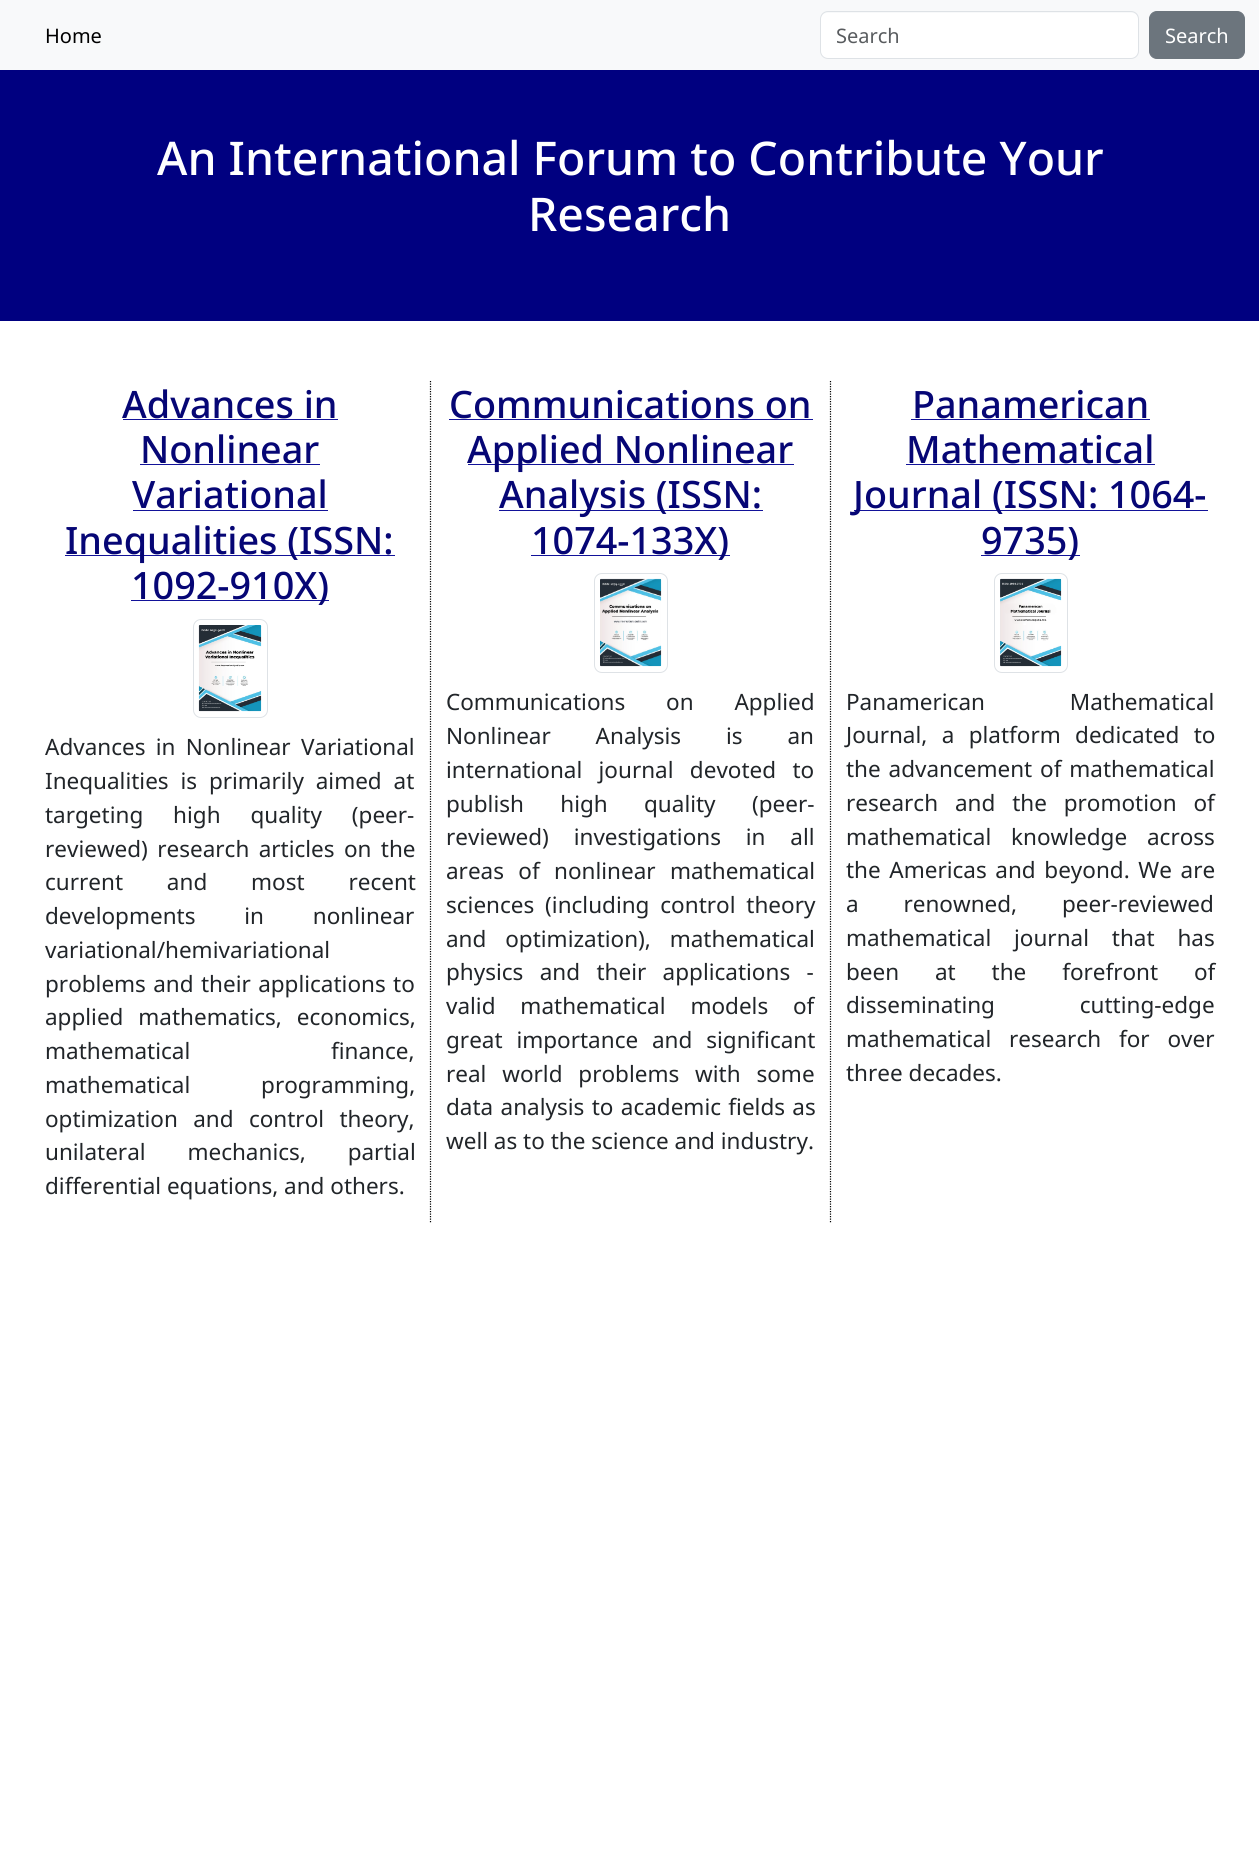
#include <cairo.h>
#include <math.h>
#include <stddef.h>

typedef struct { const char *family; double size; int italic, bold; unsigned color; } style_t;
static cairo_t *ctx;

static void ink(unsigned color) {
    cairo_set_source_rgb(ctx, (color >> 16) / 255.0, (color >> 8 & 255) / 255.0, (color & 255) / 255.0);
}

static void write(double x, double y, const char *s, const style_t *st) {
    cairo_select_font_face(ctx, st->family, st->italic ? CAIRO_FONT_SLANT_ITALIC : CAIRO_FONT_SLANT_NORMAL,
        st->bold ? CAIRO_FONT_WEIGHT_BOLD : CAIRO_FONT_WEIGHT_NORMAL);
    cairo_set_font_size(ctx, st->size);
    ink(st->color);
    cairo_move_to(ctx, x, y);
    cairo_show_text(ctx, s);
}

static void write_spaced(double x, double y, const char *s, double letter, double word) {
    cairo_move_to(ctx, x, y);
    while (*s) {
        char ch[5] = {0};
        int n = 0;
        do ch[n++] = *s++; while ((*s & 0xC0) == 0x80);
        cairo_show_text(ctx, ch);
        cairo_rel_move_to(ctx, letter + word * (*ch == ' '), 0);
    }
}

static void block(double x, double y, double w, double h, unsigned color) {
    ink(color);
    cairo_rectangle(ctx, x, y, w, h);
    cairo_fill(ctx);
}

static void round_path(double x, double y, double w, double h, double r) {
    cairo_new_sub_path(ctx);
    cairo_arc(ctx, x + w - r, y + h - r, r, 0, M_PI / 2);
    cairo_arc(ctx, x + r, y + h - r, r, M_PI / 2, M_PI);
    cairo_arc(ctx, x + r, y + r, r, M_PI, 1.5 * M_PI);
    cairo_arc(ctx, x + w - r, y + r, r, 1.5 * M_PI, 2 * M_PI);
    cairo_close_path(ctx);
}

static void paste(const char *path, double x, double y, double w, double h) {
    cairo_surface_t *image = cairo_image_surface_create_from_png(path);
    cairo_save(ctx);
    cairo_set_source_surface(ctx, image, x, y);
    cairo_rectangle(ctx, x, y, w, h);
    cairo_fill(ctx);
    cairo_restore(ctx);
    cairo_surface_destroy(image);
}

static const style_t s1 = {"Noto Sans", 20, 0, 0, 0x000000};
static const style_t s2 = {"Noto Sans", 20, 0, 0, 0x595c5f};
static const style_t s3 = {"Noto Sans", 20, 0, 0, 0xffffff};
static const style_t s4 = {"Noto Sans Medium", 46.4, 0, 0, 0xffffff};
static const style_t s5 = {"Noto Sans Medium", 37.75, 0, 0, 0x060675};
static const style_t s6 = {"Noto Sans", 22.5, 0, 0, 0x212529};

int main(void) {
    cairo_surface_t *surface = cairo_image_surface_create(CAIRO_FORMAT_RGB24, 1259, 1863);
    ctx = cairo_create(surface);
    cairo_font_options_t *options = cairo_font_options_create();
    cairo_font_options_set_hint_metrics(options, CAIRO_HINT_METRICS_OFF);
    cairo_font_options_set_hint_style(options, CAIRO_HINT_STYLE_NONE);
    cairo_set_font_options(ctx, options);
    cairo_set_miter_limit(ctx, 4);
    ink(0xffffff);
    cairo_paint(ctx);
    block(0, 0, 1259, 70, 0xf8f9fa);
    write(45, 43, "Home", &s1);
    ink(0xffffff);
    round_path(821, 13, 317, 45, 6);
    cairo_fill(ctx);
    round_path(820.5, 11.5, 318, 47, 7.5);
    ink(0xdee2e6);
    cairo_set_line_width(ctx, 1);
    cairo_stroke(ctx);
    write(836, 43, "Search", &s2);
    ink(0x6c757d);
    round_path(1149.5, 11.5, 95, 47, 7.5);
    cairo_fill_preserve(ctx);
    cairo_stroke(ctx);
    write(1165, 43, "Search", &s3);
    block(0, 70, 1259, 251, 0x000080);
    write(157, 175, "An International Forum to Contribute Your", &s4);
    write(528, 231, "Research", &s4);
    write(122, 418, "Advances in", &s5);
    block(123, 419, 215, 1, 0x121299);
    write(140, 463, "Nonlinear", &s5);
    block(140, 464, 180, 1, 0x121299);
    write(132, 508, "Variational", &s5);
    block(133, 510, 195, 1, 0x121299);
    block(65, 555, 330, 1, 0x121299);
    write(65, 554, "Inequalities (ISSN:", &s5);
    block(131, 600, 198, 1, 0x121299);
    write(131, 599, "1092-910X)", &s5);
    round_path(193.5, 619.5, 74, 98, 7.5);
    ink(0xdee2e6);
    cairo_stroke(ctx);
    paste("pic1.png", 198, 625, 64, 87);
    cairo_select_font_face(ctx, "Noto Sans", CAIRO_FONT_SLANT_NORMAL, CAIRO_FONT_WEIGHT_NORMAL);
    cairo_set_font_size(ctx, 22.5);
    ink(0x212529);
    write_spaced(45, 755, "Advances in Nonlinear Variational", 0, 4.5);
    write_spaced(45, 789, "Inequalities is primarily aimed at", 0, 6);
    write_spaced(45, 823, "targeting high quality (peer-", 0, 24);
    write_spaced(45, 857, "reviewed) research articles on the", 0, 3.5);
    write_spaced(45, 890, "current and most recent", 0, 38);
    write_spaced(45, 924, "developments in nonlinear", 0, 43);
    write(45, 958, "variational/hemivariational", &s6);
    write_spaced(45, 992, "problems and their applications to", 0, 1.5);
    write_spaced(45, 1025, "applied mathematics, economics,", 0, 9);
    write_spaced(45, 1059, "mathematical finance,", 0, 135);
    write_spaced(45, 1093, "mathematical programming,", 0, 65);
    write_spaced(45, 1127, "optimization and control theory,", 0, 9.5);
    write_spaced(45, 1160, "unilateral mechanics, partial", 0, 36);
    write(45, 1194, "differential equations, and others.", &s6);
    cairo_new_path(ctx);
    cairo_move_to(ctx, 430.5, 381);
    cairo_line_to(ctx, 430.5, 1222.5);
    ink(0x000000);
    cairo_set_line_width(ctx, 1.2);
    cairo_set_dash(ctx, (double[]){1.25, 1.25}, 2, 0);
    cairo_stroke(ctx);
    write(449, 418, "Communications on", &s5);
    block(449, 419, 364, 1, 0x121299);
    block(468, 464, 326, 1, 0x121299);
    write(467, 463, "Applied Nonlinear", &s5);
    block(499, 510, 264, 1, 0x121299);
    write(499, 508, "Analysis (ISSN:", &s5);
    block(531, 555, 199, 1, 0x121299);
    write(531, 554, "1074-133X)", &s5);
    round_path(594.5, 573.5, 73, 99, 7.5);
    ink(0xdee2e6);
    cairo_set_line_width(ctx, 1);
    cairo_set_dash(ctx, NULL, 0, 0);
    cairo_stroke(ctx);
    paste("pic2.png", 600, 578, 62, 89);
    cairo_select_font_face(ctx, "Noto Sans", CAIRO_FONT_SLANT_NORMAL, CAIRO_FONT_WEIGHT_NORMAL);
    cairo_set_font_size(ctx, 22.5);
    ink(0x212529);
    write_spaced(446, 710, "Communications on Applied", 0, 35);
    write_spaced(446, 744, "Nonlinear Analysis is an", 0, 39);
    write_spaced(446, 778, "international journal devoted to", 0, 10.5);
    write_spaced(446, 812, "publish high quality (peer-", 0, 30.5);
    write_spaced(446, 845, "reviewed) investigations in all", 0, 19);
    write_spaced(446, 879, "areas of nonlinear mathematical", 0, 8.5);
    write_spaced(446, 913, "sciences (including control theory", 0, 5);
    write_spaced(446, 947, "and optimization), mathematical", 0, 13);
    write_spaced(446, 980, "physics and their applications -", 0, 10.5);
    write_spaced(446, 1014, "valid mathematical models of", 0, 19);
    write_spaced(446, 1048, "great importance and significant", 0, 8);
    write_spaced(446, 1082, "real world problems with some", 0, 10);
    write_spaced(446, 1115, "data analysis to academic fields as", 0, 1.5);
    write(446, 1149, "well as to the science and industry.", &s6);
    cairo_new_path(ctx);
    cairo_move_to(ctx, 830.5, 381);
    cairo_line_to(ctx, 830.5, 1222.5);
    ink(0x000000);
    cairo_set_line_width(ctx, 1.2);
    cairo_set_dash(ctx, (double[]){1.25, 1.25}, 2, 0);
    cairo_stroke(ctx);
    write(912, 418, "Panamerican", &s5);
    block(911, 419, 239, 1, 0x121299);
    write(906, 463, "Mathematical", &s5);
    block(906, 464, 249, 1, 0x121299);
    block(854, 510, 354, 1, 0x121299);
    write(853, 508, "Journal (ISSN: 1064-", &s5);
    block(981, 555, 99, 1, 0x121299);
    write(981, 554, "9735)", &s5);
    round_path(994.5, 573.5, 73, 99, 7.5);
    ink(0xdee2e6);
    cairo_set_line_width(ctx, 1);
    cairo_set_dash(ctx, NULL, 0, 0);
    cairo_stroke(ctx);
    paste("pic3.png", 1000, 578, 62, 89);
    cairo_select_font_face(ctx, "Noto Sans", CAIRO_FONT_SLANT_NORMAL, CAIRO_FONT_WEIGHT_NORMAL);
    cairo_set_font_size(ctx, 22.5);
    ink(0x212529);
    write_spaced(846, 710, "Panamerican Mathematical", 0, 79);
    write_spaced(846, 743, "Journal, a platform dedicated to", 0, 8.5);
    write_spaced(846, 777, "the advancement of mathematical", 0, 2);
    write_spaced(846, 811, "research and the promotion of", 0, 11);
    write_spaced(846, 845, "mathematical knowledge across", 0, 14);
    write_spaced(846, 878, "the Americas and beyond. We are", 0, 2.75);
    write_spaced(846, 912, "a renowned, peer-reviewed", 0, 39);
    write_spaced(846, 946, "mathematical journal that has", 0, 17);
    write_spaced(846, 980, "been at the forefront of", 0, 30);
    write_spaced(846, 1013, "disseminating cutting-edge", 0, 79);
    write_spaced(846, 1047, "mathematical research for over", 0, 12);
    write(846, 1081, "three decades.", &s6);
    cairo_surface_write_to_png(surface, "screenshot.png");
    cairo_font_options_destroy(options);
    cairo_destroy(ctx);
    cairo_surface_destroy(surface);
    return 0;
}
